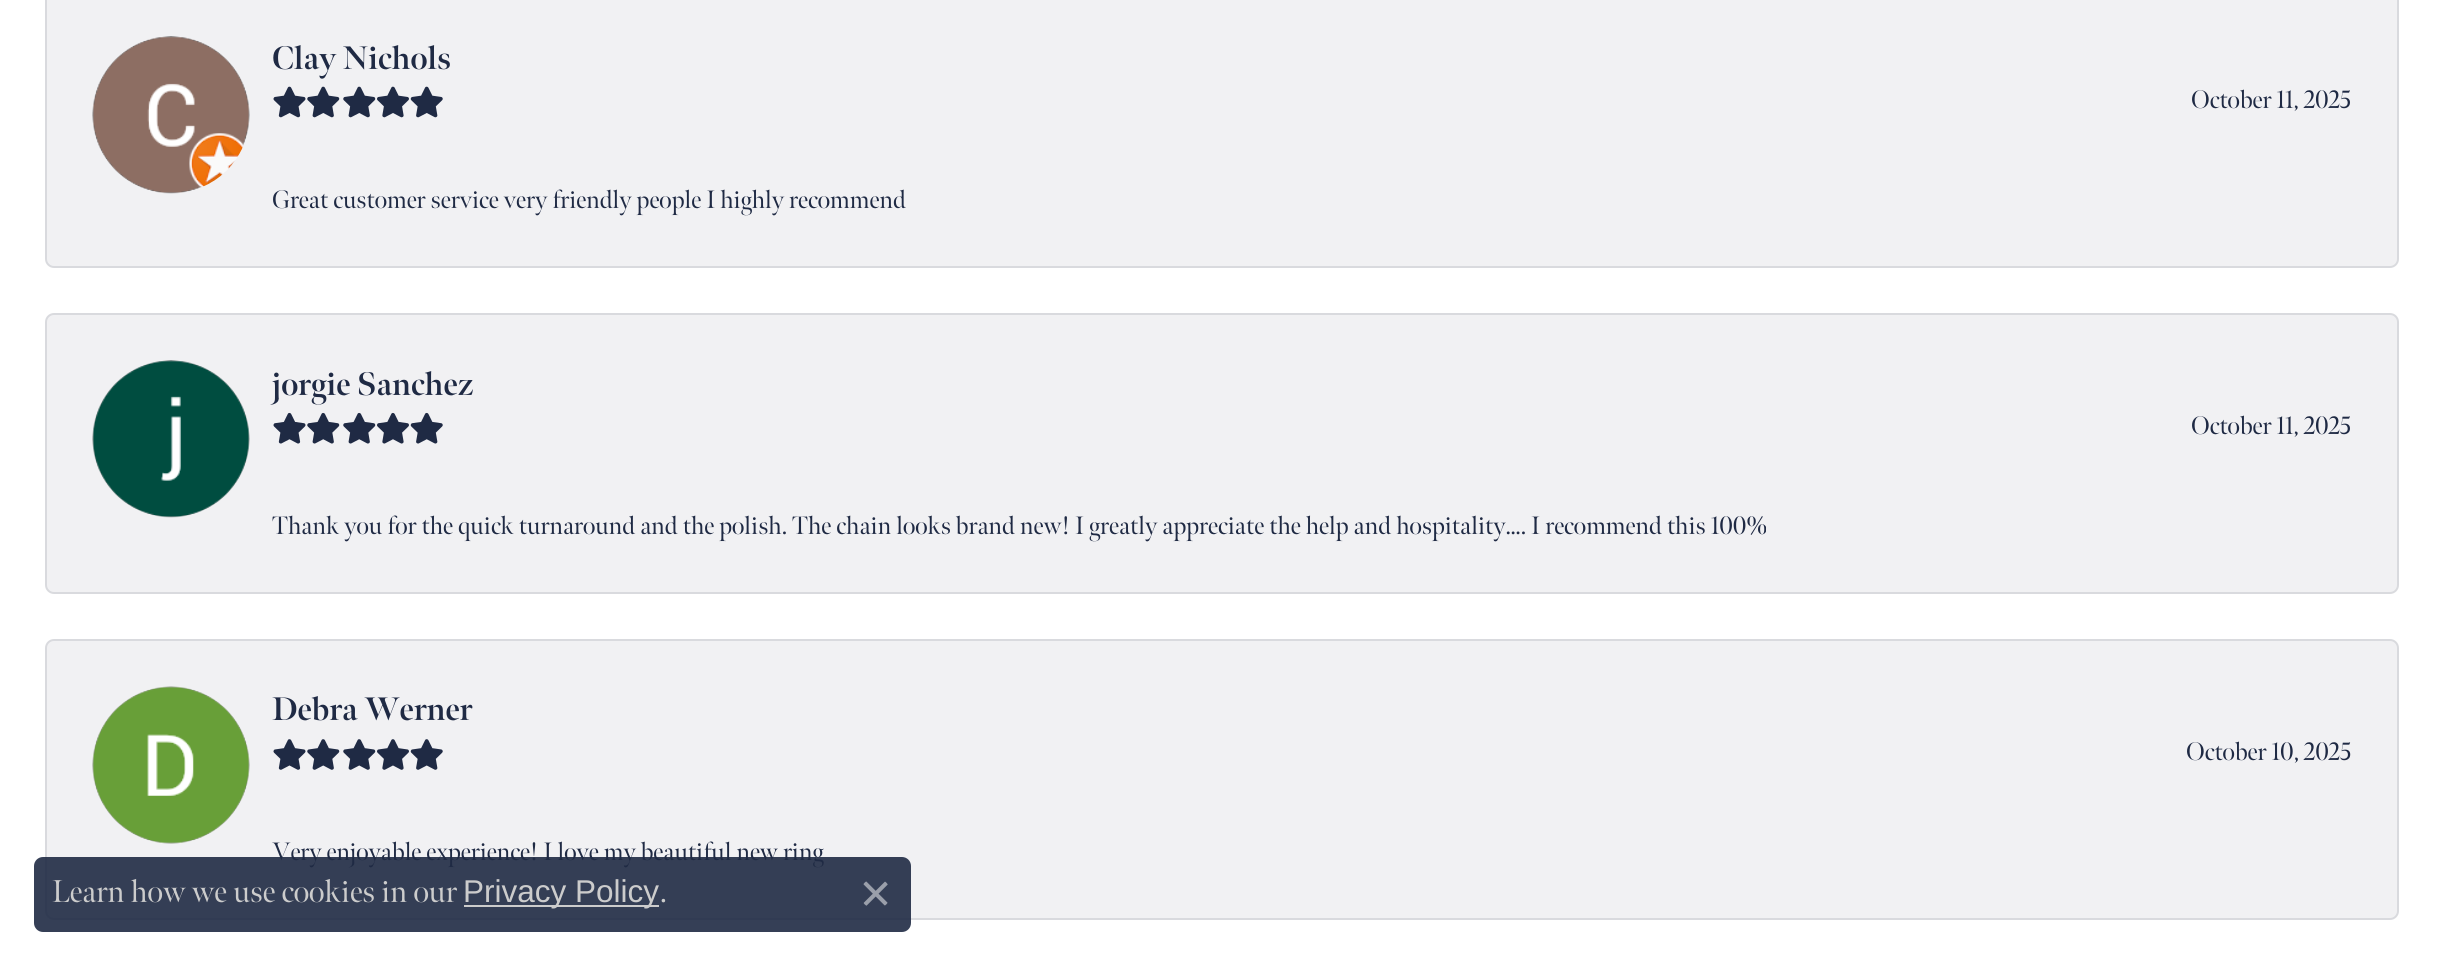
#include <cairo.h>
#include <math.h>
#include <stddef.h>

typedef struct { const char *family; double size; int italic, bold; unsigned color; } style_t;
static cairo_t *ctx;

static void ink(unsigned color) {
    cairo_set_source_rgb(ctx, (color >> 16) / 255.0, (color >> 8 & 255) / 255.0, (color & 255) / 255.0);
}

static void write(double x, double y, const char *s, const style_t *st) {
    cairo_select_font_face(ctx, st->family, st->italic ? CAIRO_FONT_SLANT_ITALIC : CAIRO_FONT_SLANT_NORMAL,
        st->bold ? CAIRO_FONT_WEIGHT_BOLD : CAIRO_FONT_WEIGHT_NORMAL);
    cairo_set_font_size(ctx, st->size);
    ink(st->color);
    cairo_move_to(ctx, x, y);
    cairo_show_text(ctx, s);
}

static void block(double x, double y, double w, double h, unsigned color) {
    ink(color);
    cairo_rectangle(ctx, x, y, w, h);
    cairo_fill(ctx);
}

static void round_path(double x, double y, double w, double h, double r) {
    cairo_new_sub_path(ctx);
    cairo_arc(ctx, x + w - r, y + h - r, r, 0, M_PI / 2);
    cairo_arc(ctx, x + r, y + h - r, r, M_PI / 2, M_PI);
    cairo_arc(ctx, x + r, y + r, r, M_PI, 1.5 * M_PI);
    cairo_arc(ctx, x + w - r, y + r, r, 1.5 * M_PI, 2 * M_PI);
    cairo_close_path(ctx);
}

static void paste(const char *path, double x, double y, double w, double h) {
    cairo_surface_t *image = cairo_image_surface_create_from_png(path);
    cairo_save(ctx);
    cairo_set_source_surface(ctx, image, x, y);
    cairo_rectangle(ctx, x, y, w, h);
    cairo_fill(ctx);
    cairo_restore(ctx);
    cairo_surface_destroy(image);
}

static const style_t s1 = {"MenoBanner", 32.5, 0, 1, 0x1f2a44};
static const style_t s2 = {"MenoBanner", 25.12, 0, 0, 0x1f2a44};
static const style_t s3 = {"MenoBanner", 31.5, 0, 0, 0xcccccc};
static const style_t s4 = {"Liberation Sans", 31.5, 0, 0, 0xcccccc};

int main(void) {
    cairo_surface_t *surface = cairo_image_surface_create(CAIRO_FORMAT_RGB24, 2443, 964);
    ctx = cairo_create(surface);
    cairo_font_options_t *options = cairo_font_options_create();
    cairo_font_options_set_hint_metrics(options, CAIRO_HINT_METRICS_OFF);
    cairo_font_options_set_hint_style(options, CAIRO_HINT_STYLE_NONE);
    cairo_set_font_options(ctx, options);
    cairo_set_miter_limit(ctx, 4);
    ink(0xffffff);
    cairo_paint(ctx);
    ink(0xf1f1f3);
    round_path(46, -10, 2352, 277, 8);
    cairo_fill_preserve(ctx);
    ink(0xd9dade);
    cairo_stroke(ctx);
    paste("pic1.png", 92, 36, 158, 158);
    write(272, 69, "Clay Nichols", &s1);
    paste("pic2.png", 273, 86, 33, 32);
    paste("pic3.png", 307, 86, 33, 32);
    paste("pic3.png", 343, 86, 33, 32);
    paste("pic4.png", 377, 86, 32, 32);
    paste("pic5.png", 410, 86, 33, 32);
    write(2191, 108, "October 11, 2025", &s2);
    write(272, 208, "Great customer service very friendly people I highly recommend", &s2);
    ink(0xf1f1f3);
    round_path(46, 314, 2352, 279, 8);
    cairo_fill_preserve(ctx);
    ink(0xd9dade);
    cairo_stroke(ctx);
    paste("pic6.png", 92, 360, 158, 158);
    write(272, 395, "jorgie Sanchez", &s1);
    paste("pic7.png", 273, 412, 33, 32);
    paste("pic8.png", 307, 412, 33, 32);
    paste("pic8.png", 343, 412, 33, 32);
    paste("pic9.png", 377, 412, 32, 32);
    paste("pic10.png", 410, 412, 33, 32);
    write(2191, 434, "October 11, 2025", &s2);
    write(272, 534, "Thank you for the quick turnaround and the polish. The chain looks brand new! I greatly appreciate the help and hospitality…. I recommend this 100%", &s2);
    ink(0xf1f1f3);
    round_path(46, 640, 2352, 279, 8);
    cairo_fill_preserve(ctx);
    ink(0xd9dade);
    cairo_stroke(ctx);
    paste("pic11.png", 92, 686, 158, 158);
    write(272, 720, "Debra Werner", &s1);
    paste("pic12.png", 273, 739, 33, 31);
    paste("pic13.png", 307, 739, 33, 31);
    paste("pic13.png", 343, 739, 33, 31);
    paste("pic14.png", 377, 739, 32, 31);
    paste("pic15.png", 410, 739, 33, 31);
    write(2186, 760, "October 10, 2025", &s2);
    write(272, 860, "Very enjoyable experience! I love my beautiful new ring", &s2);
    cairo_set_source_rgba(ctx, 0.122, 0.165, 0.267, 0.9);
    round_path(34, 857, 877, 75, 9);
    cairo_fill(ctx);
    write(52, 902, "Learn how we use cookies in our", &s3);
    block(464, 905, 195, 2, 0xcccccc);
    write(463, 902, "Privacy Policy", &s4);
    write(660, 902, ".", &s3);
    paste("pic16.png", 863, 881, 25, 25);
    cairo_surface_write_to_png(surface, "screenshot.png");
    cairo_font_options_destroy(options);
    cairo_destroy(ctx);
    cairo_surface_destroy(surface);
    return 0;
}
